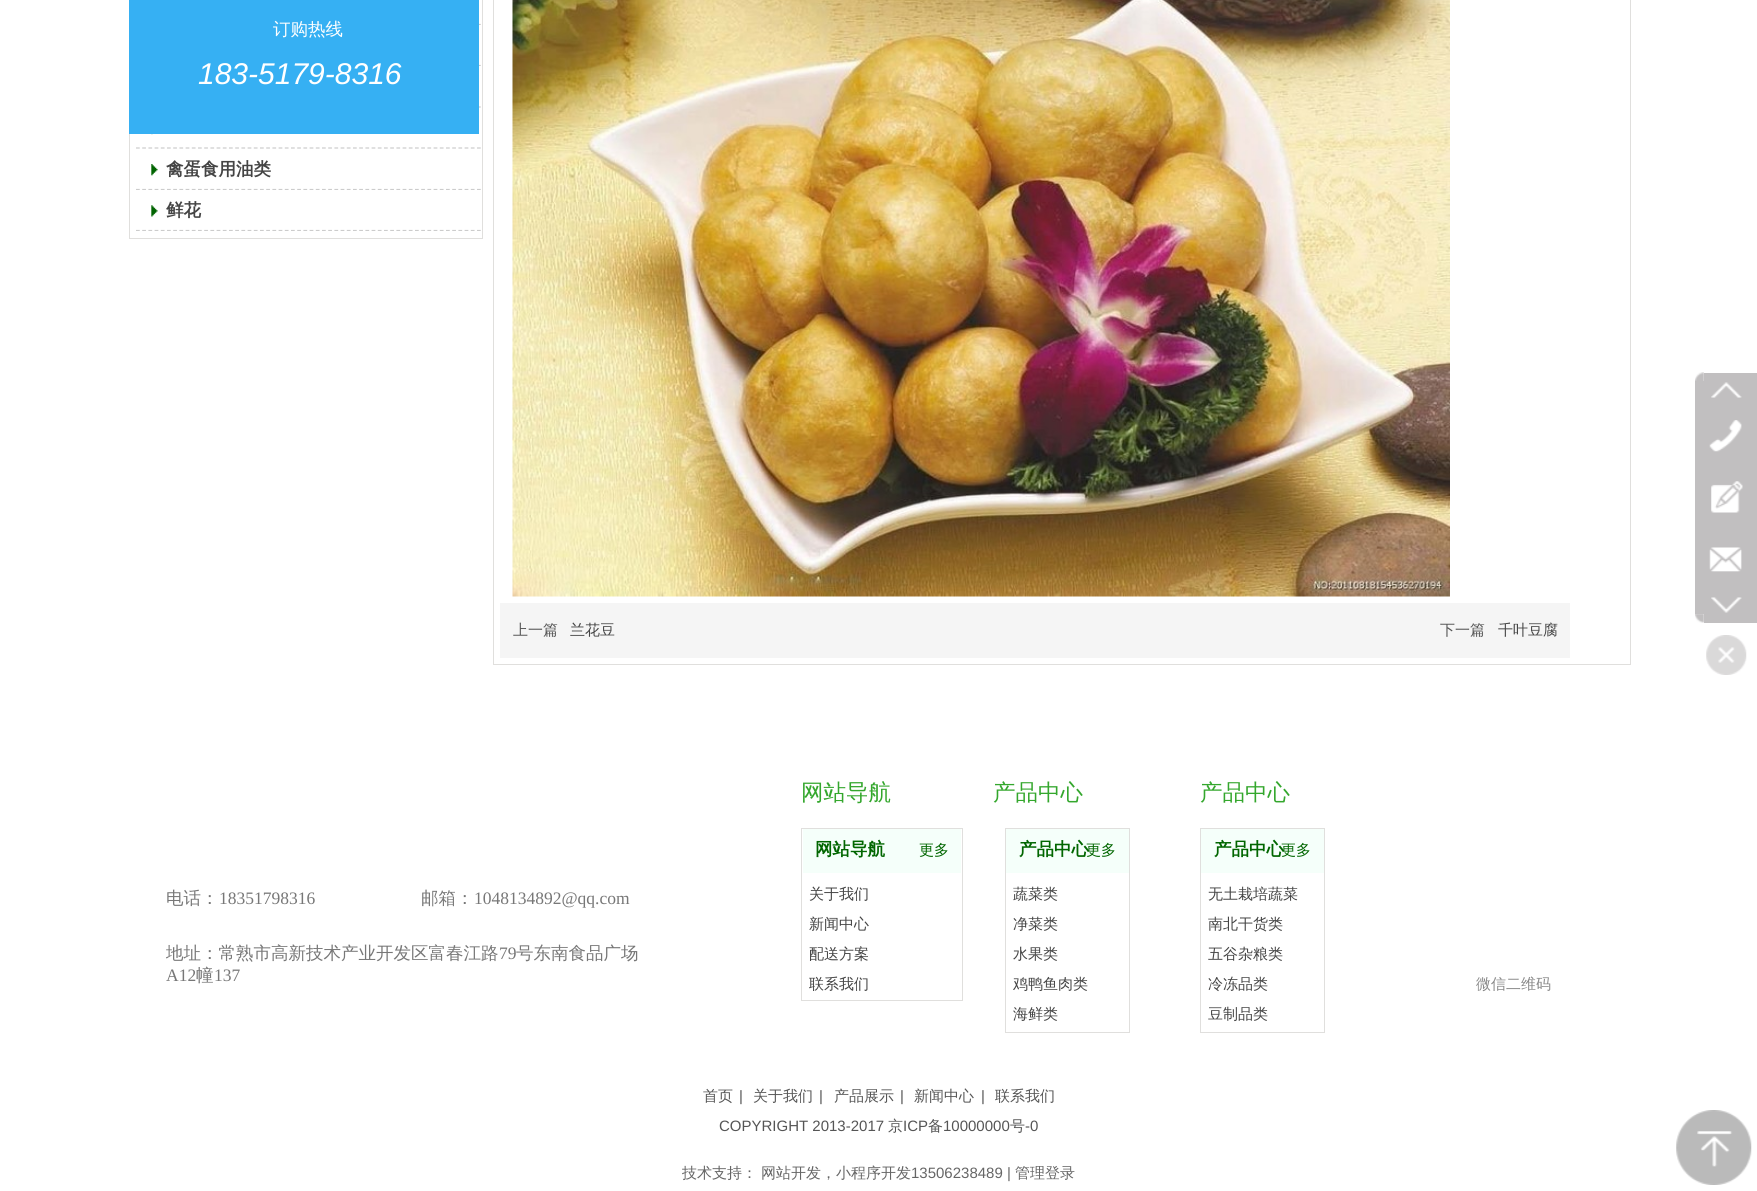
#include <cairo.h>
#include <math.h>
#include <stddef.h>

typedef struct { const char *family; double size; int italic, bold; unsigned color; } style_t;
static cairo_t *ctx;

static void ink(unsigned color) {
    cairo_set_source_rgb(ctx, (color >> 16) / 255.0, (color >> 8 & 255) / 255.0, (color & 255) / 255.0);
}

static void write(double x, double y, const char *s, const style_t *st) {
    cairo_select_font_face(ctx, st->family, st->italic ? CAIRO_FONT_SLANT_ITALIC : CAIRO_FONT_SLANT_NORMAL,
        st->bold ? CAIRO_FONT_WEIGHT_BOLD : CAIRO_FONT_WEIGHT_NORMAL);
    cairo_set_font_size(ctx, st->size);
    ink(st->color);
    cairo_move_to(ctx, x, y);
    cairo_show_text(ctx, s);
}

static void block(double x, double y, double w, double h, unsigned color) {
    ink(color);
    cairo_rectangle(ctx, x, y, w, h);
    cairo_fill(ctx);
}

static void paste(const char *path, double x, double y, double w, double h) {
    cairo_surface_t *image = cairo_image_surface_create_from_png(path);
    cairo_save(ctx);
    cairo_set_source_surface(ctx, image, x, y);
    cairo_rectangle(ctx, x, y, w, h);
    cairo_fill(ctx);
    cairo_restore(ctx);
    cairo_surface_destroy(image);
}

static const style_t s1 = {"WenQuanYi Zen Hei Medium", 17.5, 0, 0, 0xffffff};
static const style_t s2 = {"Liberation Sans", 30, 1, 0, 0xffffff};
static const style_t s3 = {"WenQuanYi Zen Hei", 17.5, 0, 1, 0x444444};
static const style_t s4 = {"WenQuanYi Zen Hei Medium", 15, 0, 0, 0x555555};
static const style_t s5 = {"WenQuanYi Zen Hei Medium", 15, 0, 0, 0x444444};
static const style_t s6 = {"WenQuanYi Zen Hei Medium", 22.5, 0, 0, 0x34a72d};
static const style_t s7 = {"WenQuanYi Zen Hei Medium", 17.5, 0, 0, 0x777777};
static const style_t s8 = {"Liberation Serif", 17.5, 0, 0, 0x777777};
static const style_t s9 = {"WenQuanYi Zen Hei", 17.5, 0, 1, 0x016600};
static const style_t s10 = {"WenQuanYi Zen Hei Medium", 15, 0, 0, 0x016600};
static const style_t s11 = {"WenQuanYi Zen Hei Medium", 15, 0, 0, 0x888888};
static const style_t s12 = {"Liberation Sans", 15, 0, 0, 0x555555};
static const style_t s13 = {"WenQuanYi Zen Hei Medium", 15, 0, 0, 0x666666};
static const style_t s14 = {"Liberation Sans", 15, 0, 0, 0x666666};

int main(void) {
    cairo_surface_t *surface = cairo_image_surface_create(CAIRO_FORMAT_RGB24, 1757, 1191);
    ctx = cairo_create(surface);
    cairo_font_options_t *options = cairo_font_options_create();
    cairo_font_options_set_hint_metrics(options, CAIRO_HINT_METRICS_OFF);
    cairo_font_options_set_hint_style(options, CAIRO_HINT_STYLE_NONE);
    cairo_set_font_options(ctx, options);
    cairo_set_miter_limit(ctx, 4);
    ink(0xffffff);
    cairo_paint(ctx);
    cairo_rectangle(ctx, 129.5, -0.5, 353, 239);
    ink(0xe0dfdd);
    cairo_set_line_width(ctx, 1);
    cairo_stroke(ctx);
    cairo_save(ctx);
    cairo_rectangle(ctx, 136, 0, 345, 25);
    cairo_clip(ctx);
    cairo_new_path(ctx);
    cairo_move_to(ctx, 136, 24.5);
    cairo_line_to(ctx, 487.5, 24.5);
    ink(0xcccccc);
    cairo_set_line_width(ctx, 1.2);
    cairo_set_dash(ctx, (double[]){3.75, 2.45}, 2, 0);
    cairo_stroke(ctx);
    cairo_restore(ctx);
    cairo_save(ctx);
    cairo_rectangle(ctx, 136, 25, 345, 41);
    cairo_clip(ctx);
    cairo_new_path(ctx);
    cairo_move_to(ctx, 136, 65.5);
    cairo_line_to(ctx, 487.5, 65.5);
    ink(0xcccccc);
    cairo_set_line_width(ctx, 1.2);
    cairo_set_dash(ctx, (double[]){3.75, 2.45}, 2, 0);
    cairo_stroke(ctx);
    cairo_restore(ctx);
    cairo_save(ctx);
    cairo_rectangle(ctx, 136, 66, 345, 42);
    cairo_clip(ctx);
    cairo_new_path(ctx);
    cairo_move_to(ctx, 136, 107);
    cairo_line_to(ctx, 487.5, 107);
    ink(0xcccccc);
    cairo_set_line_width(ctx, 1.2);
    cairo_set_dash(ctx, (double[]){3.75, 2.45}, 2, 0);
    cairo_stroke(ctx);
    cairo_restore(ctx);
    block(129, 0, 350, 134, 0x36b0f3);
    write(273, 35, "订购热线", &s1);
    write(198, 84, "183-5179-8316", &s2);
    cairo_save(ctx);
    cairo_rectangle(ctx, 136, 108, 345, 41);
    cairo_clip(ctx);
    cairo_new_path(ctx);
    cairo_move_to(ctx, 136, 148);
    cairo_line_to(ctx, 487.5, 148);
    ink(0xcccccc);
    cairo_set_line_width(ctx, 1.2);
    cairo_set_dash(ctx, (double[]){3.75, 2.45}, 2, 0);
    cairo_stroke(ctx);
    cairo_restore(ctx);
    paste("pic1.png", 151, 134, 2, 1);
    cairo_save(ctx);
    cairo_rectangle(ctx, 136, 149, 345, 41);
    cairo_clip(ctx);
    cairo_new_path(ctx);
    cairo_move_to(ctx, 136, 189.5);
    cairo_line_to(ctx, 487.5, 189.5);
    ink(0xcccccc);
    cairo_set_line_width(ctx, 1.2);
    cairo_set_dash(ctx, (double[]){3.75, 2.45}, 2, 0);
    cairo_stroke(ctx);
    cairo_restore(ctx);
    paste("pic2.png", 151, 164, 7, 12);
    write(166, 175, "禽蛋食用油类", &s3);
    cairo_save(ctx);
    cairo_rectangle(ctx, 136, 190, 345, 41);
    cairo_clip(ctx);
    cairo_new_path(ctx);
    cairo_move_to(ctx, 136, 230.5);
    cairo_line_to(ctx, 487.5, 230.5);
    ink(0xcccccc);
    cairo_set_line_width(ctx, 1.2);
    cairo_set_dash(ctx, (double[]){3.75, 2.45}, 2, 0);
    cairo_stroke(ctx);
    cairo_restore(ctx);
    paste("pic3.png", 151, 205, 7, 12);
    write(166, 216, "鲜花", &s3);
    cairo_rectangle(ctx, 493.5, -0.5, 1137, 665);
    ink(0xe0dfdd);
    cairo_stroke(ctx);
    paste("pic4.png", 512, 0, 938, 597);
    block(500, 603, 1070, 55, 0xf5f5f5);
    write(513, 635, "上一篇", &s4);
    write(570, 635, "兰花豆", &s5);
    write(1440, 635, "下一篇", &s4);
    write(1498, 635, "千叶豆腐", &s5);
    paste("pic5.png", 1695, 372, 9, 9);
    block(1704, 373, 53, 8, 0xc1bfc0);
    block(1695, 381, 62, 233, 0xc1bfc0);
    paste("pic6.png", 1711, 382, 31, 16);
    paste("pic7.png", 1709, 420, 33, 32);
    paste("pic8.png", 1711, 481, 32, 32);
    paste("pic9.png", 1709, 547, 33, 25);
    paste("pic10.png", 1711, 597, 31, 16);
    paste("pic11.png", 1695, 614, 9, 9);
    block(1704, 614, 53, 9, 0xc1bfc0);
    paste("pic12.png", 1706, 635, 41, 40);
    write(801, 800, "网站导航", &s6);
    write(993, 800, "产品中心", &s6);
    write(1200, 800, "产品中心", &s6);
    write(166, 904, "电话：", &s7);
    write(219, 904, "18351798316", &s8);
    write(421, 904, "邮箱：", &s7);
    write(474, 904, "1048134892@qq.com", &s8);
    cairo_rectangle(ctx, 801.5, 828.5, 161, 172);
    ink(0xe0dfdd);
    cairo_stroke(ctx);
    block(803, 829, 158, 44, 0xf5fffa);
    write(815, 855, "网站导航", &s9);
    write(919, 855, "更多", &s10);
    write(809, 899, "关于我们", &s5);
    write(809, 929, "新闻中心", &s5);
    write(809, 959, "配送方案", &s5);
    write(809, 989, "联系我们", &s5);
    cairo_rectangle(ctx, 1005.5, 828.5, 124, 204);
    ink(0xe0dfdd);
    cairo_stroke(ctx);
    block(1006, 829, 123, 44, 0xf5fffa);
    write(1019, 855, "产品中心", &s9);
    write(1086, 855, "更多", &s10);
    write(1013, 899, "蔬菜类", &s5);
    write(1013, 929, "净菜类", &s5);
    write(1013, 959, "水果类", &s5);
    write(1013, 989, "鸡鸭鱼肉类", &s5);
    write(1013, 1019, "海鲜类", &s5);
    cairo_rectangle(ctx, 1200.5, 828.5, 124, 204);
    ink(0xe0dfdd);
    cairo_stroke(ctx);
    block(1201, 829, 123, 44, 0xf5fffa);
    write(1214, 855, "产品中心", &s9);
    write(1281, 855, "更多", &s10);
    write(1208, 899, "无土栽培蔬菜", &s5);
    write(1208, 929, "南北干货类", &s5);
    write(1208, 959, "五谷杂粮类", &s5);
    write(1208, 989, "冷冻品类", &s5);
    write(1208, 1019, "豆制品类", &s5);
    write(166, 959, "地址：常熟市高新技术产业开发区富春江路", &s7);
    write(499, 959, "79", &s8);
    write(516, 959, "号东南食品广场", &s7);
    write(166, 981, "A12", &s8);
    write(196, 981, "幢", &s7);
    write(214, 981, "137", &s8);
    write(1476, 989, "微信二维码", &s11);
    write(703, 1101, "首页", &s4);
    write(739, 1101, "|", &s12);
    write(753, 1101, "关于我们", &s4);
    write(819, 1101, "|", &s12);
    write(834, 1101, "产品展示", &s4);
    write(900, 1101, "|", &s12);
    write(914, 1101, "新闻中心", &s4);
    write(981, 1101, "|", &s12);
    write(995, 1101, "联系我们", &s4);
    write(719, 1131, "COPYRIGHT 2013-2017", &s12);
    write(888, 1131, "京", &s4);
    write(903, 1131, "ICP", &s12);
    write(928, 1131, "备", &s4);
    write(943, 1131, "10000000", &s12);
    write(1010, 1131, "号", &s4);
    write(1025, 1131, "-0", &s12);
    paste("pic13.png", 1676, 1110, 76, 75);
    write(682, 1178, "技术支持：", &s13);
    write(761, 1178, "网站开发，小程序开发", &s13);
    write(911, 1178, "13506238489 |", &s14);
    write(1015, 1178, "管理登录", &s13);
    cairo_surface_write_to_png(surface, "screenshot.png");
    cairo_font_options_destroy(options);
    cairo_destroy(ctx);
    cairo_surface_destroy(surface);
    return 0;
}
